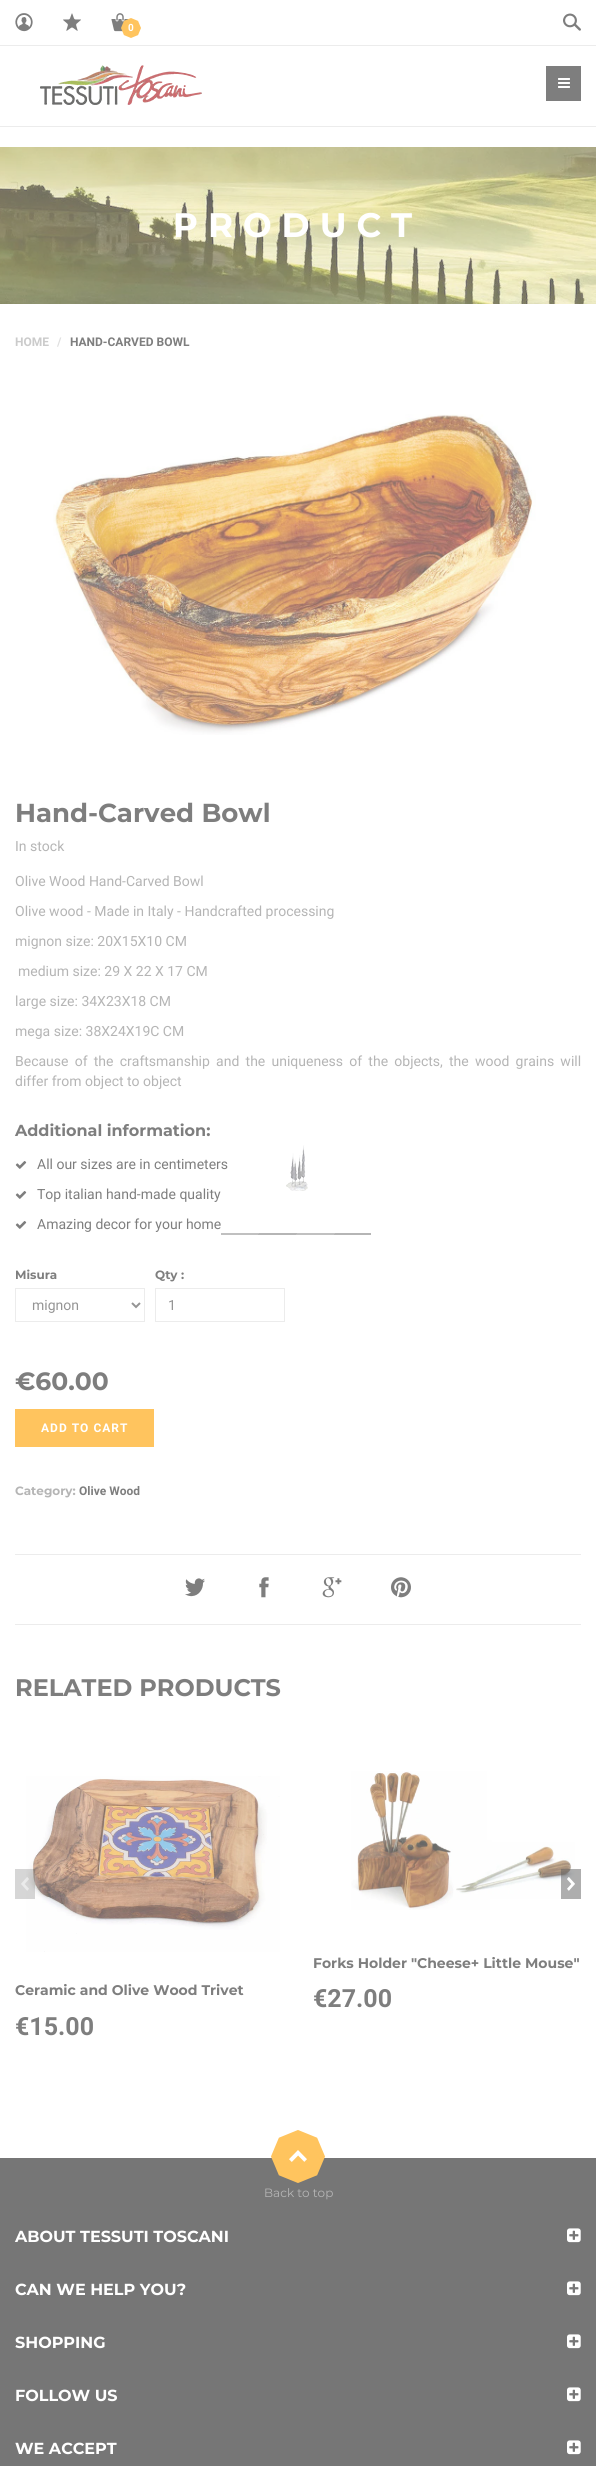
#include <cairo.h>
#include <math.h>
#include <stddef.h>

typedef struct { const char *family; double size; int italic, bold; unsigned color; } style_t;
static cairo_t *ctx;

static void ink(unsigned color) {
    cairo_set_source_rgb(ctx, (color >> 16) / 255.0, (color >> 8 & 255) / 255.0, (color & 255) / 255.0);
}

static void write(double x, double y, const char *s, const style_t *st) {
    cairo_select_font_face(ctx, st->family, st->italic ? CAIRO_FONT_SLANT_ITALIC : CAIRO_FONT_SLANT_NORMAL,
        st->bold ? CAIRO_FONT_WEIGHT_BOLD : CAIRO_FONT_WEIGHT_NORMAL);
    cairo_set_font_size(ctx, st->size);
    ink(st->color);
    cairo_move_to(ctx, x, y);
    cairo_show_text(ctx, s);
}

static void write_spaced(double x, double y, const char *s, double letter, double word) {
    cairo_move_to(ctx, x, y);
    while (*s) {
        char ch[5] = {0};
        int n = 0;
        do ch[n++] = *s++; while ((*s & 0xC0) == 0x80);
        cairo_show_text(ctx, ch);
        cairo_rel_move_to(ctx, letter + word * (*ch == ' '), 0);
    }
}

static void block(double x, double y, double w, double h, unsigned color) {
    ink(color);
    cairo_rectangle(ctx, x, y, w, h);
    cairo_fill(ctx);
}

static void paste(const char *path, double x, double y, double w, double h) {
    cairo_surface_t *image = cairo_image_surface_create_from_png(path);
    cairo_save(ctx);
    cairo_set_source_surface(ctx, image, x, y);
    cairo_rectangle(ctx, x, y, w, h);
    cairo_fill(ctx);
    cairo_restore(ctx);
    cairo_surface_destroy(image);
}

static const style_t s1 = {"Roboto", 10, 0, 1, 0xffffff};
static const style_t s2 = {"Roboto", 12, 0, 1, 0xcbcbcb};
static const style_t s3 = {"Roboto", 12, 0, 1, 0xdfdfdf};
static const style_t s4 = {"Roboto", 12, 0, 1, 0x7e7e7e};
static const style_t s5 = {"Montserrat", 26, 0, 1, 0x7e7e7e};
static const style_t s6 = {"Roboto", 14, 0, 0, 0xb5b5b5};
static const style_t s7 = {"Montserrat", 16, 0, 1, 0x7e7e7e};
static const style_t s8 = {"Roboto", 14, 0, 0, 0x7e7e7e};
static const style_t s9 = {"Montserrat", 12, 0, 1, 0x7e7e7e};
static const style_t s10 = {"Roboto", 14, 0, 0, 0x949494};
static const style_t s11 = {"Montserrat", 25, 0, 1, 0x7e7e7e};
static const style_t s12 = {"Montserrat", 12, 0, 1, 0xb5b5b5};
static const style_t s13 = {"Montserrat", 24, 0, 1, 0x7e7e7e};
static const style_t s14 = {"Montserrat", 14, 0, 1, 0x7e7e7e};
static const style_t s15 = {"Roboto", 25, 0, 1, 0x7e7e7e};
static const style_t s16 = {"Montserrat", 12, 0, 0, 0xb5b5b5};
static const style_t s17 = {"Montserrat", 16, 0, 1, 0xffffff};

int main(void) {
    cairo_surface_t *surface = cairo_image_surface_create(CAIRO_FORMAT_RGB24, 596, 2466);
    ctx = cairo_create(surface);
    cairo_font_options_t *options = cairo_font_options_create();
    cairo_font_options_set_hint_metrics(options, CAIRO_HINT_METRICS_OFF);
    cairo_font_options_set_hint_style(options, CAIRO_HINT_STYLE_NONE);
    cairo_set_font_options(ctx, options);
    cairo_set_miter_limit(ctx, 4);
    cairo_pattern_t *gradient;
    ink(0xffffff);
    cairo_paint(ctx);
    block(0, 126, 596, 1, 0xececec);
    block(0, 45, 596, 1, 0xececec);
    paste("pic1.png", 15, 13, 18, 19);
    paste("pic2.png", 63, 13, 18, 18);
    paste("pic3.png", 111, 13, 18, 19);
    paste("pic4.png", 121, 18, 20, 20);
    write(128, 31, "0", &s1);
    paste("pic5.png", 563, 13, 18, 18);
    paste("pic6.png", 40, 65, 162, 40);
    block(546, 66, 35, 35, 0x7e7e7e);
    paste("pic7.png", 558, 78, 12, 10);
    paste("pic8.png", 0, 147, 596, 157);
    cairo_select_font_face(ctx, "Montserrat", CAIRO_FONT_SLANT_NORMAL, CAIRO_FONT_WEIGHT_BOLD);
    cairo_set_font_size(ctx, 34);
    ink(0xffffff);
    write_spaced(173, 237, "PRODUCT", 10, 0);
    write(15, 346, "HOME", &s2);
    write(57, 346, "/", &s3);
    write(70, 346, "HAND-CARVED BOWL", &s4);
    paste("pic9.png", 53, 414, 483, 321);
    write(15, 822, "Hand-Carved Bowl", &s5);
    write(15, 851, "In stock", &s6);
    write(15, 886, "Olive Wood Hand-Carved Bowl", &s6);
    write(15, 916, "Olive wood - Made in Italy - Handcrafted processing", &s6);
    write(15, 946, "mignon size: 20X15X10 CM", &s6);
    write(18, 976, "medium size: 29 X 22 X 17 CM", &s6);
    write(15, 1006, "large size: 34X23X18 CM", &s6);
    write(15, 1036, "mega size: 38X24X19C CM", &s6);
    write_spaced(15, 1066, "Because of the craftsmanship and the uniqueness of the objects, the wood grains will", 0, 2.75);
    write(15, 1086, "differ from object to object", &s6);
    write(15, 1136, "Additional information:", &s7);
    paste("pic10.png", 15, 1161, 12, 8);
    write(37, 1169, "All our sizes are in centimeters", &s8);
    paste("pic10.png", 15, 1191, 12, 8);
    write(37, 1199, "Top italian hand-made quality", &s8);
    paste("pic10.png", 15, 1221, 12, 8);
    write(37, 1229, "Amazing decor for your home", &s8);
    write(15, 1279, "Misura", &s9);
    cairo_rectangle(ctx, 15.5, 1288.5, 129, 33);
    ink(0xececec);
    cairo_set_line_width(ctx, 1);
    cairo_stroke(ctx);
    cairo_new_path(ctx);
    cairo_move_to(ctx, 132, 1303);
    cairo_line_to(ctx, 136, 1307);
    cairo_line_to(ctx, 140, 1303);
    ink(0x949494);
    cairo_set_line_width(ctx, 2);
    cairo_stroke(ctx);
    write(32, 1310, "mignon", &s10);
    write(155, 1279, "Qty :", &s9);
    cairo_rectangle(ctx, 155.5, 1288.5, 129, 33);
    ink(0xececec);
    cairo_set_line_width(ctx, 1);
    cairo_stroke(ctx);
    write(168, 1310, "1", &s10);
    write(15, 1390, "€60.00", &s11);
    block(15, 1409, 139, 38, 0xffc45e);
    cairo_select_font_face(ctx, "Roboto", CAIRO_FONT_SLANT_NORMAL, CAIRO_FONT_WEIGHT_BOLD);
    cairo_set_font_size(ctx, 12);
    ink(0xffffff);
    write_spaced(41, 1432, "ADD TO CART", 1, 0);
    write(15, 1495, "Category:", &s12);
    write(79, 1495, "Olive Wood", &s4);
    block(15, 1554, 566, 1, 0xececec);
    block(15, 1624, 566, 1, 0xececec);
    paste("pic11.png", 185, 1578, 20, 19);
    paste("pic12.png", 259, 1577, 10, 21);
    paste("pic13.png", 322, 1577, 20, 21);
    paste("pic14.png", 391, 1577, 20, 21);
    write(15, 1696, "RELATED PRODUCTS", &s13);
    paste("pic17.png", 26, 1776, 254, 176);
    cairo_set_source_rgba(ctx, 0.369, 0.369, 0.369, 0.25);
    cairo_rectangle(ctx, 15, 1869, 20, 30);
    cairo_fill(ctx);
    paste("pic15.png", 21, 1877, 8, 14);
    paste("pic18.png", 351, 1771, 224, 139);
    cairo_set_source_rgba(ctx, 0.369, 0.369, 0.369, 0.5);
    cairo_rectangle(ctx, 561, 1869, 20, 30);
    cairo_fill(ctx);
    paste("pic16.png", 567, 1877, 8, 14);
    write(15, 1995, "Ceramic and Olive Wood Trivet", &s14);
    write(15, 2035, "€15.00", &s15);
    write(313, 1968, "Forks Holder \"Cheese+ Little Mouse\"", &s14);
    write(313, 2007, "€27.00", &s15);
    paste("pic19.png", 286, 1145, 22, 46);
    gradient = cairo_pattern_create_linear(258, 1196, 334, 1272);
    cairo_pattern_add_color_stop_rgba(gradient, 0, 0.753, 0.753, 0.753, 1);
    cairo_pattern_add_color_stop_rgba(gradient, 0.25, 0.753, 0.753, 0.753, 1);
    cairo_pattern_add_color_stop_rgba(gradient, 0.25, 0.71, 0.71, 0.71, 1);
    cairo_pattern_add_color_stop_rgba(gradient, 0.5, 0.71, 0.71, 0.71, 1);
    cairo_pattern_add_color_stop_rgba(gradient, 0.5, 0.753, 0.753, 0.753, 1);
    cairo_pattern_add_color_stop_rgba(gradient, 0.75, 0.753, 0.753, 0.753, 1);
    cairo_pattern_add_color_stop_rgba(gradient, 0.75, 0.71, 0.71, 0.71, 1);
    cairo_pattern_add_color_stop_rgba(gradient, 1, 0.71, 0.71, 0.71, 1);
    cairo_set_source(ctx, gradient);
    cairo_pattern_destroy(gradient);
    cairo_rectangle(ctx, 221, 1233, 150, 2);
    cairo_fill(ctx);
    block(0, 2158, 596, 308, 0x767676);
    paste("pic20.png", 271, 2130, 54, 53);
    write(264, 2197, "Back to top", &s16);
    write(15, 2242, "ABOUT TESSUTI TOSCANI", &s17);
    paste("pic21.png", 567, 2228, 14, 15);
    write(15, 2295, "CAN WE HELP YOU?", &s17);
    paste("pic21.png", 567, 2281, 14, 15);
    write(15, 2348, "SHOPPING", &s17);
    paste("pic21.png", 567, 2334, 14, 15);
    write(15, 2401, "FOLLOW US", &s17);
    paste("pic21.png", 567, 2387, 14, 15);
    write(15, 2454, "WE ACCEPT", &s17);
    paste("pic21.png", 567, 2440, 14, 15);
    cairo_surface_write_to_png(surface, "screenshot.png");
    cairo_font_options_destroy(options);
    cairo_destroy(ctx);
    cairo_surface_destroy(surface);
    return 0;
}
